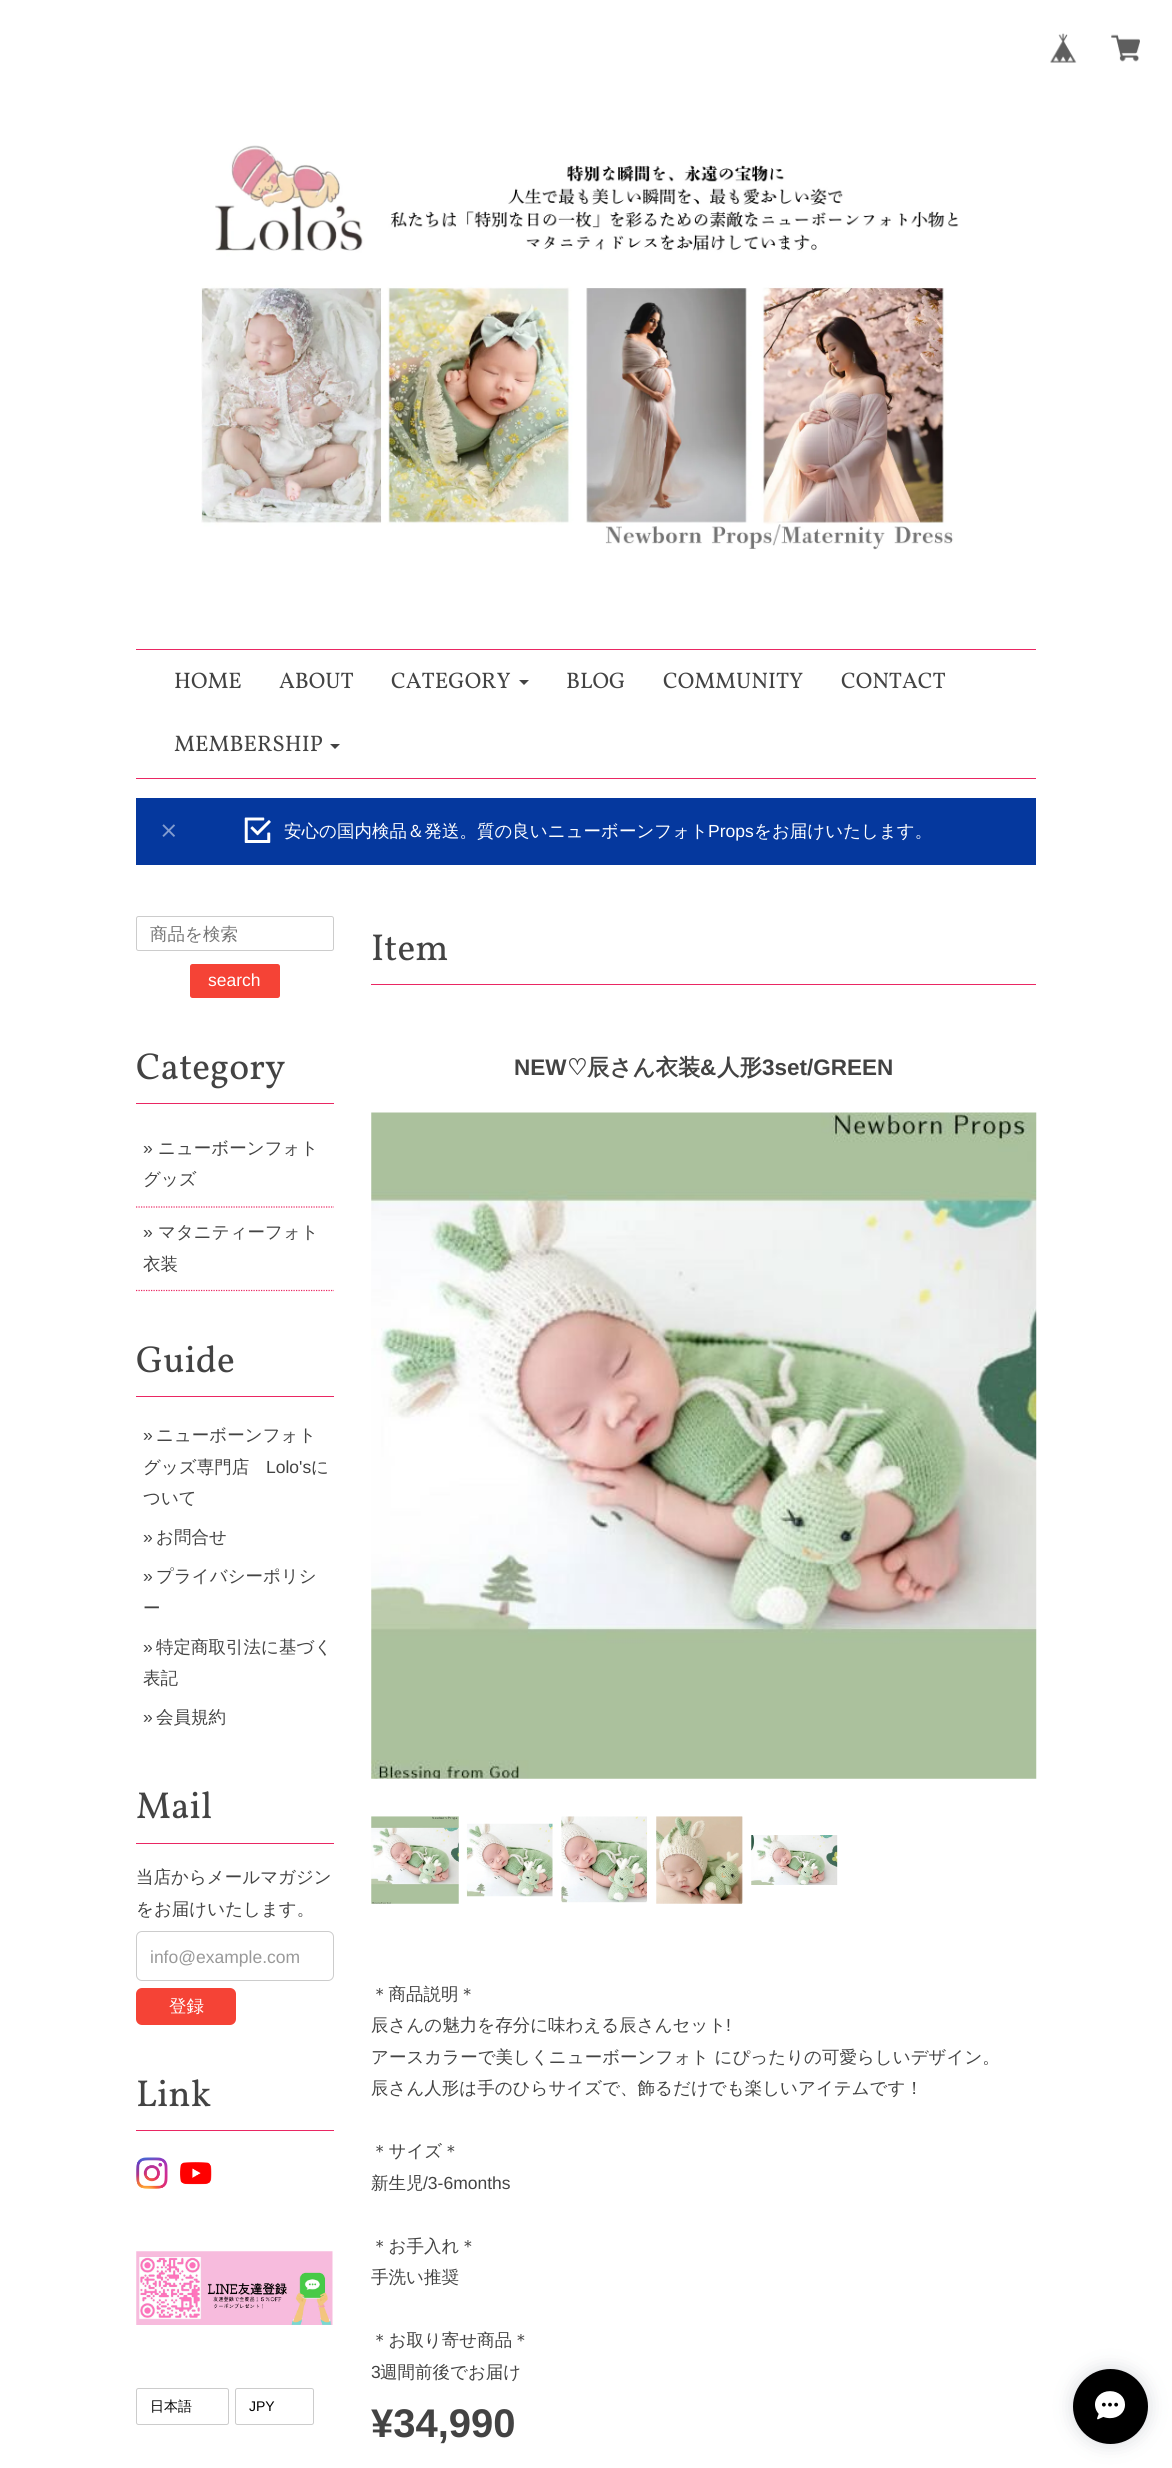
#include <cairo.h>
#include <math.h>
#include <stddef.h>

typedef struct { const char *family; double size; int italic, bold; unsigned color; } style_t;
static cairo_t *ctx;

static void ink(unsigned color) {
    cairo_set_source_rgb(ctx, (color >> 16) / 255.0, (color >> 8 & 255) / 255.0, (color & 255) / 255.0);
}

static void write(double x, double y, const char *s, const style_t *st) {
    cairo_select_font_face(ctx, st->family, st->italic ? CAIRO_FONT_SLANT_ITALIC : CAIRO_FONT_SLANT_NORMAL,
        st->bold ? CAIRO_FONT_WEIGHT_BOLD : CAIRO_FONT_WEIGHT_NORMAL);
    cairo_set_font_size(ctx, st->size);
    ink(st->color);
    cairo_move_to(ctx, x, y);
    cairo_show_text(ctx, s);
}

static void block(double x, double y, double w, double h, unsigned color) {
    ink(color);
    cairo_rectangle(ctx, x, y, w, h);
    cairo_fill(ctx);
}

static void round_path(double x, double y, double w, double h, double r) {
    cairo_new_sub_path(ctx);
    cairo_arc(ctx, x + w - r, y + h - r, r, 0, M_PI / 2);
    cairo_arc(ctx, x + r, y + h - r, r, M_PI / 2, M_PI);
    cairo_arc(ctx, x + r, y + r, r, M_PI, 1.5 * M_PI);
    cairo_arc(ctx, x + w - r, y + r, r, 1.5 * M_PI, 2 * M_PI);
    cairo_close_path(ctx);
}

static void blur_box(double x, double y, double w, double h, double r, double blur, double alpha) {
    cairo_push_group_with_content(ctx, CAIRO_CONTENT_ALPHA);
    cairo_set_operator(ctx, CAIRO_OPERATOR_SOURCE);
    for (int i = 15; i >= -15 && fmin(w, h) + blur * i / 3 > 0; i -= 2) {
        double e = blur * i / 6;
        cairo_set_source_rgba(ctx, 0, 0, 0, alpha * erfc((i - 1) / 8.5) / 2);
        round_path(x - e, y - e, w + 2 * e, h + 2 * e, fmax(0, fmin(r + e + blur * .6, fmin(w, h) / 2 + e)));
        cairo_fill(ctx);
    }
    cairo_pattern_t *soft = cairo_pop_group(ctx);
    cairo_mask(ctx, soft);
    cairo_pattern_destroy(soft);
}

static void paste(const char *path, double x, double y, double w, double h) {
    cairo_surface_t *image = cairo_image_surface_create_from_png(path);
    cairo_save(ctx);
    cairo_set_source_surface(ctx, image, x, y);
    cairo_rectangle(ctx, x, y, w, h);
    cairo_fill(ctx);
    cairo_restore(ctx);
    cairo_surface_destroy(image);
}

static const style_t s1 = {"Vollkorn", 22.5, 0, 0, 0x434343};
static const style_t s2 = {"WenQuanYi Zen Hei Medium", 17.5, 0, 0, 0xffffff};
static const style_t s3 = {"Liberation Sans", 17.5, 0, 0, 0xffffff};
static const style_t s4 = {"WenQuanYi Zen Hei Medium", 17.5, 0, 0, 0x757575};
static const style_t s5 = {"Vollkorn", 37.5, 0, 0, 0x434343};
static const style_t s6 = {"Liberation Sans", 17.5, 0, 0, 0x434343};
static const style_t s7 = {"WenQuanYi Zen Hei Medium", 17.5, 0, 0, 0x434343};
static const style_t s8 = {"Liberation Sans", 17.5, 0, 0, 0x999999};
static const style_t s9 = {"WenQuanYi Zen Hei Medium", 14, 0, 0, 0x000000};
static const style_t s10 = {"Liberation Sans", 14, 0, 0, 0x000000};
static const style_t s11 = {"Liberation Sans", 22.5, 0, 1, 0x434343};
static const style_t s12 = {"DejaVu Sans", 22.5, 0, 1, 0x434343};
static const style_t s13 = {"WenQuanYi Zen Hei", 22.5, 0, 1, 0x434343};
static const style_t s14 = {"Liberation Sans", 40, 0, 1, 0x434343};

int main(void) {
    cairo_surface_t *surface = cairo_image_surface_create(CAIRO_FORMAT_RGB24, 1172, 2468);
    ctx = cairo_create(surface);
    cairo_font_options_t *options = cairo_font_options_create();
    cairo_font_options_set_hint_metrics(options, CAIRO_HINT_METRICS_OFF);
    cairo_font_options_set_hint_style(options, CAIRO_HINT_STYLE_NONE);
    cairo_set_font_options(ctx, options);
    cairo_set_miter_limit(ctx, 4);
    ink(0xffffff);
    cairo_paint(ctx);
    paste("pic1.png", 1050, 33, 27, 30);
    paste("pic2.png", 1111, 34, 29, 28);
    paste("pic3.png", 201, 145, 758, 405);
    block(136, 649, 900, 1, 0xea2763);
    block(136, 778, 900, 1, 0xea2763);
    write(174, 688, "HOME", &s1);
    write(279, 688, "ABOUT", &s1);
    write(391, 688, "CATEGORY", &s1);
    cairo_new_path(ctx);
    cairo_move_to(ctx, 519, 680);
    cairo_line_to(ctx, 529, 680);
    cairo_line_to(ctx, 524, 685);
    cairo_close_path(ctx);
    cairo_fill(ctx);
    write(566, 688, "BLOG", &s1);
    write(663, 688, "COMMUNITY", &s1);
    write(841, 688, "CONTACT", &s1);
    write(174, 751, "MEMBERSHIP", &s1);
    cairo_new_path(ctx);
    cairo_move_to(ctx, 330, 744);
    cairo_line_to(ctx, 340, 744);
    cairo_line_to(ctx, 335, 749);
    cairo_close_path(ctx);
    cairo_fill(ctx);
    block(136, 798, 900, 67, 0x05389e);
    paste("pic4.png", 162, 824, 13, 13);
    paste("pic5.png", 244, 817, 27, 26);
    write(284, 837, "安心の国内検品＆発送。質の良いニューボーンフォト", &s2);
    write(708, 837, "Props", &s3);
    write(754, 837, "をお届けいたします。", &s2);
    round_path(136.5, 916.5, 197, 34, 2);
    ink(0xcccccc);
    cairo_set_line_width(ctx, 1);
    cairo_stroke(ctx);
    write(150, 940, "商品を検索", &s4);
    ink(0xf54336);
    round_path(190, 964, 90, 34, 2.5);
    cairo_fill(ctx);
    write(208, 986, "search", &s3);
    block(136, 1103, 198, 1, 0xea2763);
    write(136, 1079, "Category", &s5);
    cairo_new_path(ctx);
    cairo_move_to(ctx, 136, 1207);
    cairo_line_to(ctx, 334, 1207);
    ink(0xea2763);
    cairo_set_line_width(ctx, 1.2);
    cairo_set_dash(ctx, (double[]){1.25, 1.25}, 2, 0);
    cairo_stroke(ctx);
    write(143, 1154, "»", &s6);
    write(158, 1154, "ニューボーンフォト", &s7);
    write(143, 1185, "グッズ", &s7);
    cairo_new_path(ctx);
    cairo_move_to(ctx, 136, 1290.5);
    cairo_line_to(ctx, 334, 1290.5);
    ink(0xea2763);
    cairo_stroke(ctx);
    write(143, 1238, "»", &s6);
    write(158, 1238, "マタニティーフォト", &s7);
    write(143, 1270, "衣装", &s7);
    block(136, 1396, 198, 1, 0xea2763);
    write(136, 1372, "Guide", &s5);
    write(143, 1441, "»", &s6);
    write(156, 1441, "ニューボーンフォト", &s7);
    write(143, 1473, "グッズ専門店", &s7);
    write(266, 1473, "Lolo's", &s6);
    write(311, 1473, "に", &s7);
    write(143, 1504, "ついて", &s7);
    write(143, 1543, "»", &s6);
    write(156, 1543, "お問合せ", &s7);
    write(143, 1582, "»", &s6);
    write(156, 1582, "プライバシーポリシ", &s7);
    write(143, 1614, "ー", &s7);
    write(143, 1653, "»", &s6);
    write(156, 1653, "特定商取引法に基づく", &s7);
    write(143, 1684, "表記", &s7);
    write(143, 1723, "»", &s6);
    write(156, 1723, "会員規約", &s7);
    block(136, 1843, 198, 1, 0xea2763);
    write(136, 1818, "Mail", &s5);
    write(136, 1883, "当店からメールマガジン", &s7);
    write(136, 1915, "をお届けいたします。", &s7);
    round_path(136.5, 1931.5, 197, 49, 5.5);
    ink(0xcccccc);
    cairo_set_line_width(ctx, 1);
    cairo_set_dash(ctx, NULL, 0, 0);
    cairo_stroke(ctx);
    write(150, 1963, "info@example.com", &s8);
    ink(0xf54336);
    round_path(136, 1988, 100, 37, 6);
    cairo_fill(ctx);
    write(169, 2012, "登録", &s2);
    block(136, 2130, 198, 1, 0xea2763);
    write(136, 2106, "Link", &s5);
    paste("pic6.png", 136, 2157, 32, 32);
    paste("pic7.png", 180, 2162, 32, 23);
    paste("pic8.png", 136, 2251, 197, 74);
    round_path(136.5, 2388.5, 92, 36, 2);
    ink(0xcccccc);
    cairo_stroke(ctx);
    write(150, 2411, "日本語", &s9);
    round_path(235.5, 2388.5, 78, 36, 2);
    ink(0xcccccc);
    cairo_stroke(ctx);
    write(249, 2411, "JPY", &s10);
    block(371, 984, 665, 1, 0xea2763);
    write(371, 960, "Item", &s5);
    write(514, 1075, "NEW", &s11);
    write(567, 1075, "♡", &s12);
    write(587, 1075, "辰さん衣装", &s13);
    write(700, 1075, "&", &s11);
    write(717, 1075, "人形", &s13);
    write(762, 1075, "3set/GREEN", &s11);
    paste("pic9.png", 371, 1112, 666, 667);
    paste("pic10.png", 371, 1816, 88, 88);
    paste("pic11.png", 466, 1823, 87, 74);
    paste("pic12.png", 561, 1816, 87, 87);
    paste("pic13.png", 656, 1816, 87, 88);
    paste("pic14.png", 751, 1835, 87, 50);
    write(371, 2000, "＊商品説明＊", &s7);
    write(371, 2031, "辰さんの魅力を存分に味わえる辰さんセット", &s7);
    write(726, 2031, "!", &s6);
    write(371, 2063, "アースカラーで美しくニューボーンフォト にぴったりの可愛らしいデザイン。", &s7);
    write(371, 2094, "辰さん人形は手のひらサイズで、飾るだけでも楽しいアイテムです！", &s7);
    write(371, 2157, "＊サイズ＊", &s7);
    write(371, 2189, "新生児", &s7);
    write(423, 2189, "/3-6months", &s6);
    write(371, 2252, "＊お手入れ＊", &s7);
    write(371, 2283, "手洗い推奨", &s7);
    write(371, 2346, "＊お取り寄せ商品＊", &s7);
    write(371, 2378, "3", &s6);
    write(380, 2378, "週間前後でお届け", &s7);
    write(371, 2437, "¥34,990", &s14);
    ink(0x334258);
    blur_box(1073, 2369, 75, 75, 37.5, 9.5, 0.2);
    ink(0x000000);
    cairo_arc(ctx, 1110.5, 2406.5, 37.5, 0, 2 * M_PI);
    cairo_fill(ctx);
    paste("pic15.png", 1095, 2391, 30, 29);
    cairo_surface_write_to_png(surface, "screenshot.png");
    cairo_font_options_destroy(options);
    cairo_destroy(ctx);
    cairo_surface_destroy(surface);
    return 0;
}
